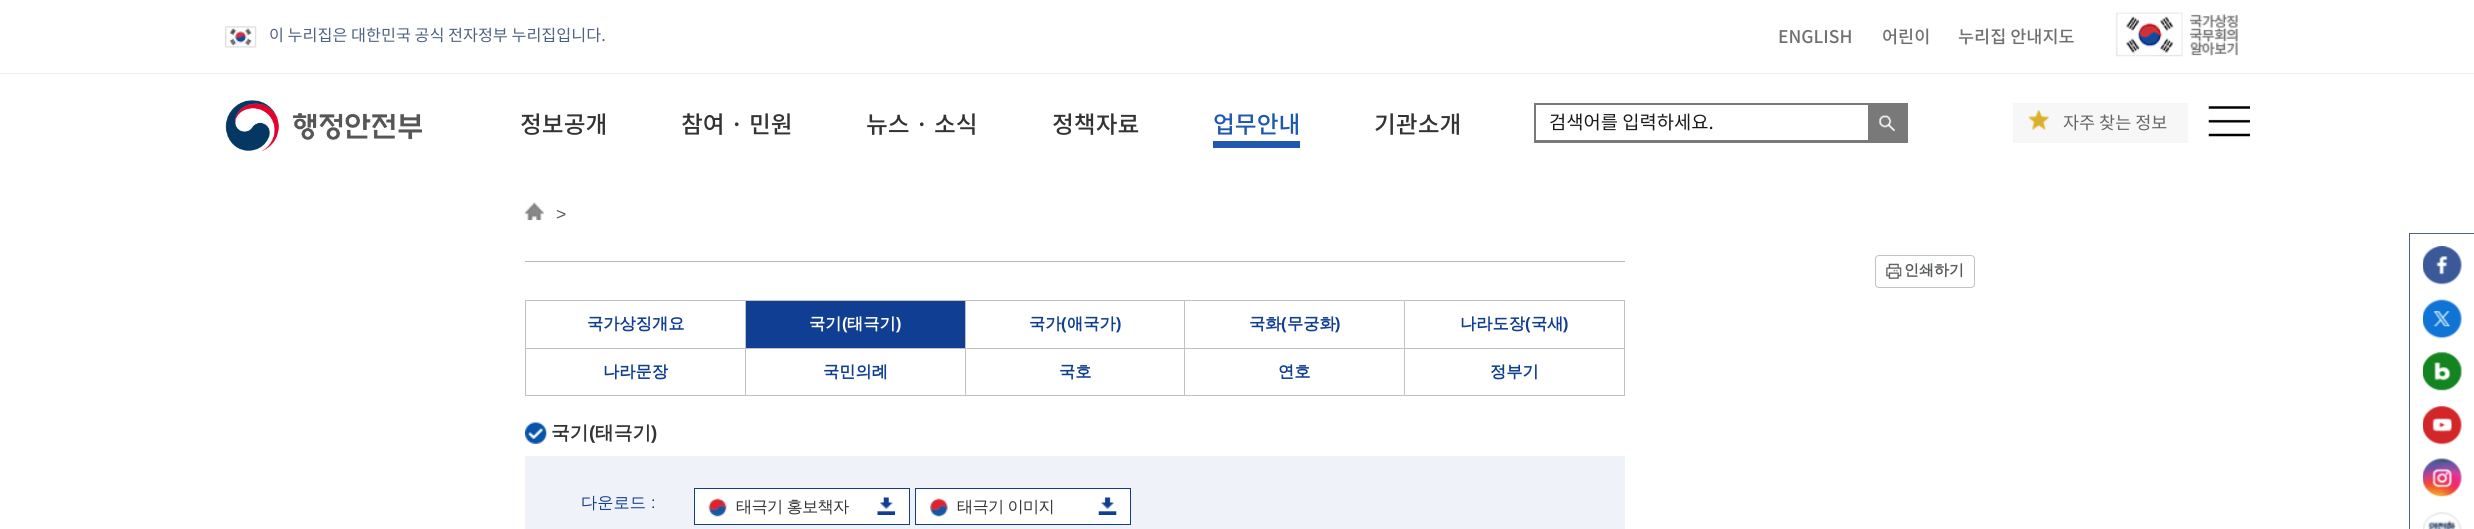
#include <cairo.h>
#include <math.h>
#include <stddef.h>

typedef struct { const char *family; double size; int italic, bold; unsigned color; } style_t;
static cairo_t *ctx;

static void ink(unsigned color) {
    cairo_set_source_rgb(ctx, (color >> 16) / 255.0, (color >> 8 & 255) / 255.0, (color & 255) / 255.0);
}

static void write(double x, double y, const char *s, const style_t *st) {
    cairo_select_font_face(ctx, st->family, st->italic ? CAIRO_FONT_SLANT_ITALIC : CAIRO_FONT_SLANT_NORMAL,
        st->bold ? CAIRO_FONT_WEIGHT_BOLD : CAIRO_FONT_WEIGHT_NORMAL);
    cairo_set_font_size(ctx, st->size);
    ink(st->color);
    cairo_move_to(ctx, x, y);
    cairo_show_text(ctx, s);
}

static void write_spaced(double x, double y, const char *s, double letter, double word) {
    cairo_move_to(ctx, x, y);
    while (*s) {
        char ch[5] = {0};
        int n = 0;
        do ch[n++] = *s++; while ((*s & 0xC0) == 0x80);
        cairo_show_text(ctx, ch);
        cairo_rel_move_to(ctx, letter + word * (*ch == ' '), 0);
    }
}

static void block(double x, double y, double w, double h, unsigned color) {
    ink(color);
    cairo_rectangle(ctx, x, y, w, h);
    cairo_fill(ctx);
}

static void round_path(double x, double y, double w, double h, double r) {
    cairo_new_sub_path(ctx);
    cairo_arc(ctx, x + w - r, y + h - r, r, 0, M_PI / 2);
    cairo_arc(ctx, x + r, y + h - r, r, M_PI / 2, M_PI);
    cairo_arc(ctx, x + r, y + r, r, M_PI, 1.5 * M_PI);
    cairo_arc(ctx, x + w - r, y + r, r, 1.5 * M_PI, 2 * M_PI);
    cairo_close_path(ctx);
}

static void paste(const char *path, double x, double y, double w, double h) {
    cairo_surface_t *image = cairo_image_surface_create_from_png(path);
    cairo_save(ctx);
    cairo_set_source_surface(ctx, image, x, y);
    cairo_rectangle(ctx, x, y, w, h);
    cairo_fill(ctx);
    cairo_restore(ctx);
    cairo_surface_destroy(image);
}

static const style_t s1 = {"Noto Sans KR", 16.25, 0, 0, 0x4f6280};
static const style_t s2 = {"Noto Sans KR Medium", 17.5, 0, 0, 0x707070};
static const style_t s3 = {"Noto Sans KR Medium", 23.75, 0, 0, 0x333333};
static const style_t s4 = {"Noto Sans KR Medium", 23.75, 0, 0, 0x1e58af};
static const style_t s5 = {"Noto Sans KR", 18.75, 0, 0, 0x1a1a1a};
static const style_t s6 = {"Noto Sans KR", 17.5, 0, 0, 0x666666};
static const style_t s7 = {"Liberation Sans", 17.5, 0, 0, 0x585b5c};
static const style_t s8 = {"WenQuanYi Zen Hei", 15, 0, 1, 0x585b5c};
static const style_t s9 = {"WenQuanYi Zen Hei", 16.25, 0, 1, 0x103e93};
static const style_t s10 = {"WenQuanYi Zen Hei", 16.25, 0, 1, 0xffffff};
static const style_t s11 = {"Liberation Sans", 16.25, 0, 1, 0xffffff};
static const style_t s12 = {"Liberation Sans", 16.25, 0, 1, 0x103e93};
static const style_t s13 = {"WenQuanYi Zen Hei", 18.75, 0, 1, 0x333333};
static const style_t s14 = {"Liberation Sans", 18.75, 0, 1, 0x333333};
static const style_t s15 = {"WenQuanYi Zen Hei Medium", 16.25, 0, 0, 0x103e93};
static const style_t s16 = {"Liberation Sans", 16.25, 0, 0, 0x103e93};

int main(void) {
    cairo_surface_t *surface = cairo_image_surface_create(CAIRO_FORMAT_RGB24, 2474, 529);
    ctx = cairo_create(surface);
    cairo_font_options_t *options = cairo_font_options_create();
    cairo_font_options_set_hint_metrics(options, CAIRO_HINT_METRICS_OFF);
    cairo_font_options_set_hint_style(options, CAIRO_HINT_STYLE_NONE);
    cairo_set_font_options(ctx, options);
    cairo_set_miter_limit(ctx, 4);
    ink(0xffffff);
    cairo_paint(ctx);
    block(0, 73, 2474, 1, 0xeeeeee);
    paste("pic1.png", 225, 26, 32, 22);
    write(269, 41, "이 누리집은 대한민국 공식 전자정부 누리집입니다.", &s1);
    write(1778, 43, "ENGLISH", &s2);
    write(1882, 43, "어린이", &s2);
    write(1958, 43, "누리집 안내지도", &s2);
    paste("pic2.png", 2116, 12, 122, 45);
    cairo_rectangle(ctx, 2409.5, 233.5, 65, 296);
    ink(0x4f6280);
    cairo_set_line_width(ctx, 1);
    cairo_stroke(ctx);
    paste("pic3.png", 2423, 246, 39, 39);
    paste("pic4.png", 2423, 299, 39, 40);
    paste("pic5.png", 2423, 352, 39, 39);
    paste("pic6.png", 2423, 406, 39, 39);
    paste("pic7.png", 2423, 458, 39, 39);
    paste("pic8.png", 2423, 512, 39, 17);
    paste("pic9.png", 225, 100, 197, 52);
    write(520, 133, "정보공개", &s3);
    write(681, 133, "참여 · 민원", &s3);
    write(866, 133, "뉴스 · 소식", &s3);
    write(1052, 133, "정책자료", &s3);
    write(1213, 133, "업무안내", &s4);
    block(1213, 141, 87, 7, 0x1e58af);
    write(1374, 133, "기관소개", &s3);
    cairo_rectangle(ctx, 1535.5, 104.5, 371, 37);
    ink(0x797979);
    cairo_set_line_width(ctx, 3);
    cairo_stroke(ctx);
    block(1536, 105, 332, 35, 0xffffff);
    write(1549, 129, "검색어를 입력하세요.", &s5);
    block(1868, 106, 37, 34, 0x797979);
    paste("pic10.png", 1879, 115, 16, 16);
    block(2013, 103, 175, 40, 0xf7f7f7);
    paste("pic11.png", 2028, 110, 21, 20);
    write(2063, 129, "자주 찾는 정보", &s6);
    paste("pic12.png", 2208, 106, 42, 31);
    paste("pic13.png", 524, 202, 20, 18);
    write(556, 220, ">", &s7);
    block(525, 261, 1100, 1, 0xbababa);
    paste("pic14.png", 1886, 263, 16, 16);
    round_path(1875.5, 255.5, 99, 32, 3.5);
    ink(0xc1c2c3);
    cairo_set_line_width(ctx, 1);
    cairo_stroke(ctx);
    write(1904, 275, "인쇄하기", &s8);
    block(525, 300, 1100, 1, 0xc1c2c3);
    block(525, 300, 1, 96, 0xc1c2c3);
    block(745, 301, 1, 48, 0xc1c2c3);
    block(526, 348, 220, 1, 0xc1c2c3);
    write(587, 329, "국가상징개요", &s9);
    block(746, 301, 219, 47, 0x103e93);
    block(965, 301, 1, 48, 0xc1c2c3);
    block(746, 348, 220, 1, 0xc1c2c3);
    write(809, 329, "국기", &s10);
    write(842, 329, "(", &s11);
    write(847, 329, "태극기", &s10);
    write(896, 329, ")", &s11);
    block(1184, 301, 1, 48, 0xc1c2c3);
    block(966, 348, 219, 1, 0xc1c2c3);
    write(1029, 329, "국가", &s9);
    write(1061, 329, "(", &s12);
    write(1067, 329, "애국가", &s9);
    write(1116, 329, ")", &s12);
    block(1404, 301, 1, 48, 0xc1c2c3);
    block(1185, 348, 220, 1, 0xc1c2c3);
    write(1249, 329, "국화", &s9);
    write(1281, 329, "(", &s12);
    write(1287, 329, "무궁화", &s9);
    write(1335, 329, ")", &s12);
    block(1624, 301, 1, 48, 0xc1c2c3);
    block(1405, 348, 220, 1, 0xc1c2c3);
    write(1460, 329, "나라도장", &s9);
    write(1525, 329, "(", &s12);
    write(1531, 329, "국새", &s9);
    write(1563, 329, ")", &s12);
    block(745, 348, 1, 48, 0xc1c2c3);
    block(526, 395, 220, 1, 0xc1c2c3);
    write(603, 377, "나라문장", &s9);
    block(965, 348, 1, 48, 0xc1c2c3);
    block(746, 395, 220, 1, 0xc1c2c3);
    write(823, 377, "국민의례", &s9);
    block(1184, 348, 1, 48, 0xc1c2c3);
    block(966, 395, 219, 1, 0xc1c2c3);
    write(1059, 377, "국호", &s9);
    block(1404, 348, 1, 48, 0xc1c2c3);
    block(1185, 395, 220, 1, 0xc1c2c3);
    write(1278, 377, "연호", &s9);
    block(1624, 348, 1, 48, 0xc1c2c3);
    block(1405, 395, 220, 1, 0xc1c2c3);
    write(1490, 377, "정부기", &s9);
    paste("pic15.png", 525, 422, 22, 22);
    write(551, 439, "국기", &s13);
    write(589, 439, "(", &s14);
    write(595, 439, "태극기", &s13);
    write(651, 439, ")", &s14);
    block(525, 456, 1100, 73, 0xeff2f8);
    write(581, 508, "다운로드", &s15);
    write(651, 508, ":", &s16);
    ink(0xffffff);
    cairo_rectangle(ctx, 694.5, 488.5, 215, 36);
    cairo_fill_preserve(ctx);
    ink(0x103e93);
    cairo_stroke(ctx);
    paste("pic16.png", 708, 498, 19, 19);
    cairo_select_font_face(ctx, "WenQuanYi Zen Hei Medium", CAIRO_FONT_SLANT_NORMAL, CAIRO_FONT_WEIGHT_NORMAL);
    ink(0x333333);
    write_spaced(736, 512, "태극기 홍보책자", -0.75, 0);
    paste("pic17.png", 877, 497, 18, 18);
    ink(0xffffff);
    cairo_rectangle(ctx, 915.5, 488.5, 215, 36);
    cairo_fill_preserve(ctx);
    ink(0x103e93);
    cairo_stroke(ctx);
    paste("pic18.png", 930, 498, 18, 19);
    ink(0x333333);
    write_spaced(957, 512, "태극기 이미지", -0.75, 0);
    paste("pic19.png", 1098, 497, 19, 18);
    cairo_surface_write_to_png(surface, "screenshot.png");
    cairo_font_options_destroy(options);
    cairo_destroy(ctx);
    cairo_surface_destroy(surface);
    return 0;
}
